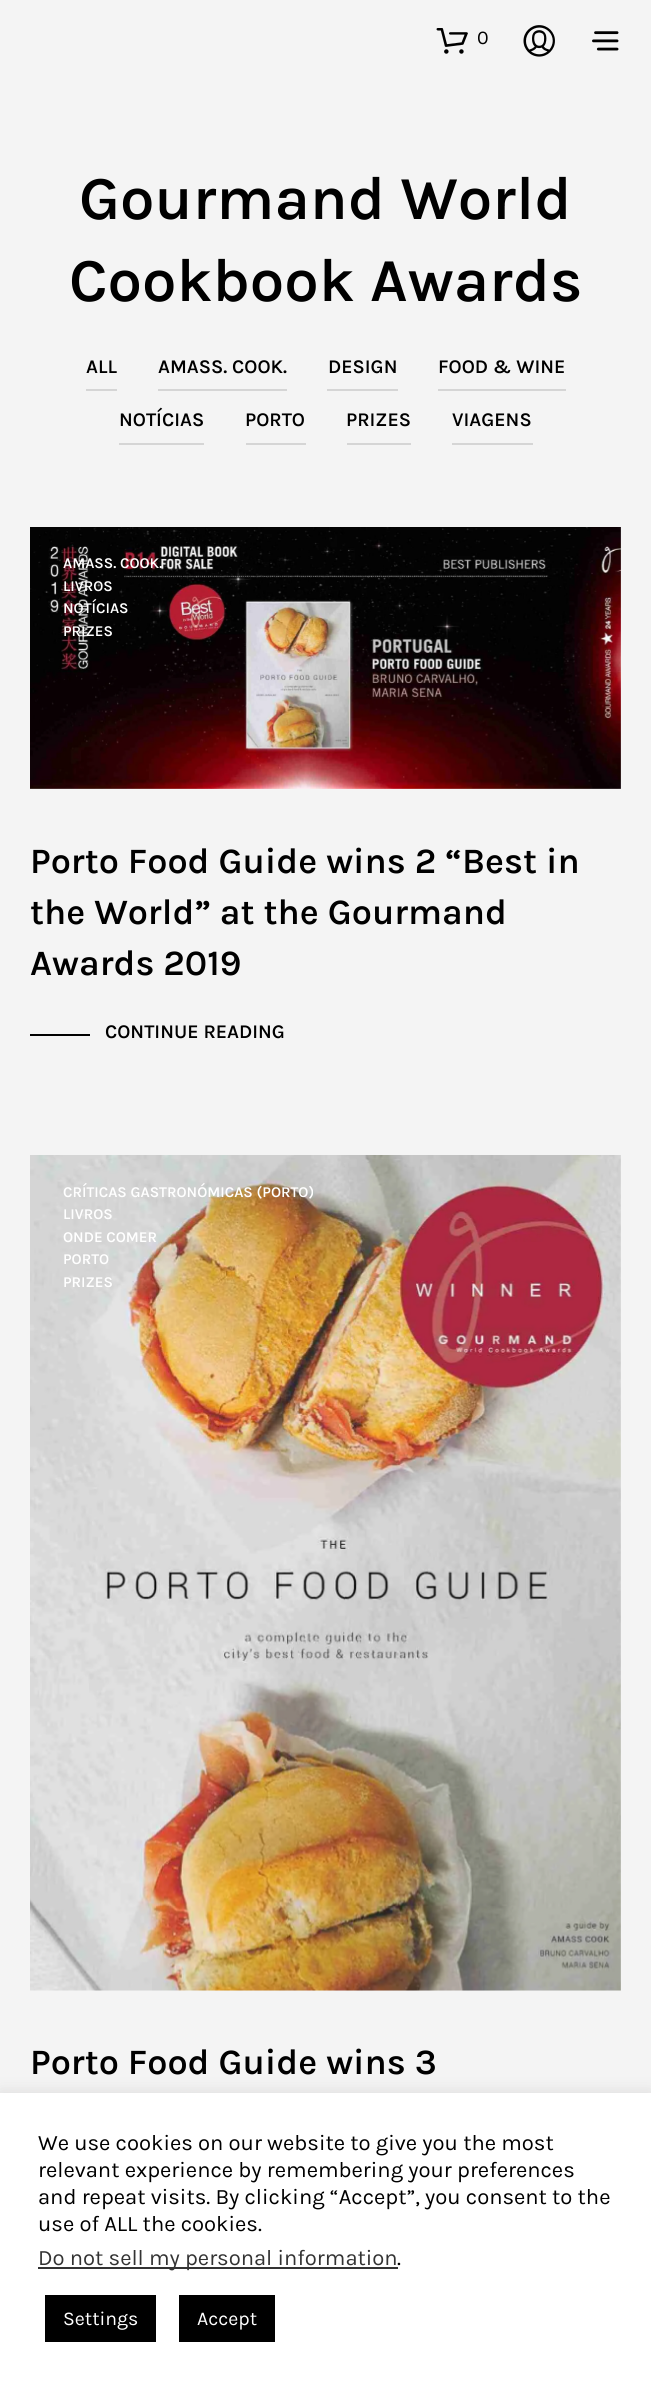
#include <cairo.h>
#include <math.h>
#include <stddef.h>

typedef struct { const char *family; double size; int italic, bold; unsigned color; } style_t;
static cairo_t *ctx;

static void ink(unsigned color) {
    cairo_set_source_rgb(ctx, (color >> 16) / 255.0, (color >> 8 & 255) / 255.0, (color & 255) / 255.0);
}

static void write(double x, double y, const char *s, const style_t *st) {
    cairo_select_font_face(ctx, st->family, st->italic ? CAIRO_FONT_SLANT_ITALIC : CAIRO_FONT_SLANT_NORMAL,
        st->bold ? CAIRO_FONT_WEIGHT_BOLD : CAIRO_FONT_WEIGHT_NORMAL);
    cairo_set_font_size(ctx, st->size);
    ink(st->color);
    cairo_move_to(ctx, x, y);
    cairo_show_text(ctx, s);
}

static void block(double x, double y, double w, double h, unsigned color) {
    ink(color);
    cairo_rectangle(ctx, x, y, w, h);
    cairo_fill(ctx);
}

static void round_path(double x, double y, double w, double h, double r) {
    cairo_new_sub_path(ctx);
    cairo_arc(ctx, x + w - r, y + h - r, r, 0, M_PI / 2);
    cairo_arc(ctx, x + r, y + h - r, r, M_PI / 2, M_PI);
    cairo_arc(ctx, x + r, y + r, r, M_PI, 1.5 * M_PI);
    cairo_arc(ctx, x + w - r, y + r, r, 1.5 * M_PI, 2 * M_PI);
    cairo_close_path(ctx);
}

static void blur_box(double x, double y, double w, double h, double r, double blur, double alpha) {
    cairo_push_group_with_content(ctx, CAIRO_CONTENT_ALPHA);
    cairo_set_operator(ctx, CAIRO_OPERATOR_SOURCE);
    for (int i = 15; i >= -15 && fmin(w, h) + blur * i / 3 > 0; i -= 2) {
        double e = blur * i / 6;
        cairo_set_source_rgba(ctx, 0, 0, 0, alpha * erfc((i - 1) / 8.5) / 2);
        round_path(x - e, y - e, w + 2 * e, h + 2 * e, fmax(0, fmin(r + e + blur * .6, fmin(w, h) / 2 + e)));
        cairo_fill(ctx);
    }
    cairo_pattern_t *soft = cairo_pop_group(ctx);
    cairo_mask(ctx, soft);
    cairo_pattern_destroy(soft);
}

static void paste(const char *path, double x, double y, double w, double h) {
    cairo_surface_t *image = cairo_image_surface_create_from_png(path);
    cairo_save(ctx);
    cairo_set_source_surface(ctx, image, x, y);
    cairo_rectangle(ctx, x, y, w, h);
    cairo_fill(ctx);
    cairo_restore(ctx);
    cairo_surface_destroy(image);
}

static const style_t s1 = {"Karla", 19.5, 0, 0, 0x000000};
static const style_t s2 = {"Karla SemiBold", 61.5, 0, 0, 0x000000};
static const style_t s3 = {"Karla SemiBold", 19.5, 0, 0, 0x000000};
static const style_t s4 = {"Karla SemiBold", 15, 0, 0, 0xffffff};
static const style_t s5 = {"Karla SemiBold", 36, 0, 0, 0x000000};
static const style_t s6 = {"Karla", 22, 0, 0, 0x000000};
static const style_t s7 = {"Karla", 22, 0, 0, 0x333333};
static const style_t s8 = {"Karla", 19.5, 0, 0, 0xffffff};

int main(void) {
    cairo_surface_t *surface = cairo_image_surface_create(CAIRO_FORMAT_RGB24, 651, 2386);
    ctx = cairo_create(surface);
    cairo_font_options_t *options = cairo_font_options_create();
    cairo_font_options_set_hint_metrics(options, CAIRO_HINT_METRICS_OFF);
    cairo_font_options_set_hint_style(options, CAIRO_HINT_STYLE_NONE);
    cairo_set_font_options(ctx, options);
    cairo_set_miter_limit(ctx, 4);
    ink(0xf4f4f4);
    cairo_paint(ctx);
    paste("pic1.png", 436, 28, 32, 26);
    write(477, 44, "0", &s1);
    paste("pic2.png", 523, 25, 32, 32);
    paste("pic3.png", 592, 31, 27, 20);
    write(79, 219, "Gourmand World", &s2);
    write(69, 301, "Cookbook Awards", &s2);
    block(86, 389, 31, 2, 0xd5d5d5);
    write(86, 373, "ALL", &s3);
    block(158, 389, 129, 2, 0xd5d5d5);
    write(158, 373, "AMASS. COOK.", &s3);
    block(327, 389, 71, 2, 0xd5d5d5);
    write(328, 373, "DESIGN", &s3);
    block(438, 389, 128, 2, 0xd5d5d5);
    write(438, 373, "FOOD & WINE", &s3);
    block(119, 443, 85, 2, 0xd5d5d5);
    write(119, 426, "NOTÍCIAS", &s3);
    block(246, 443, 60, 2, 0xd5d5d5);
    write(245, 426, "PORTO", &s3);
    block(347, 443, 64, 2, 0xd5d5d5);
    write(346, 426, "PRIZES", &s3);
    block(452, 443, 81, 2, 0xd5d5d5);
    write(452, 426, "VIAGENS", &s3);
    paste("pic4.png", 30, 527, 591, 262);
    write(63, 568, "AMASS. COOK.", &s4);
    write(63, 591, "LIVROS", &s4);
    write(63, 613, "NOTÍCIAS", &s4);
    write(63, 636, "PRIZES", &s4);
    write(30, 873, "Porto Food Guide wins 2 “Best in", &s5);
    write(30, 924, "the World” at the Gourmand", &s5);
    write(30, 975, "Awards 2019", &s5);
    block(30, 1034, 60, 2, 0x000000);
    write(105, 1038, "CONTINUE READING", &s3);
    paste("pic5.png", 30, 1155, 591, 836);
    write(63, 1197, "CRÍTICAS GASTRONÓMICAS (PORTO)", &s4);
    write(63, 1219, "LIVROS", &s4);
    write(63, 1242, "ONDE COMER", &s4);
    write(63, 1264, "PORTO", &s4);
    write(63, 1287, "PRIZES", &s4);
    write(30, 2074, "Porto Food Guide wins 3", &s5);
    ink(0xacabab);
    blur_box(0, 2091, 651, 294, 0, 7.5, 0.3);
    block(0, 2093, 651, 293, 0xffffff);
    write(38, 2150, "We use cookies on our website to give you the most", &s6);
    write(38, 2177, "relevant experience by remembering your preferences", &s6);
    write(38, 2204, "and repeat visits. By clicking “Accept”, you consent to the", &s6);
    write(38, 2231, "use of ALL the cookies.", &s6);
    block(38, 2267, 360, 2, 0x333333);
    write(38, 2265, "Do not sell my personal information", &s7);
    write(397, 2265, ".", &s6);
    block(45, 2295, 111, 47, 0x000000);
    write(63, 2325, "Settings", &s8);
    block(179, 2295, 96, 47, 0x000000);
    write(197, 2325, "Accept", &s8);
    cairo_surface_write_to_png(surface, "screenshot.png");
    cairo_font_options_destroy(options);
    cairo_destroy(ctx);
    cairo_surface_destroy(surface);
    return 0;
}
